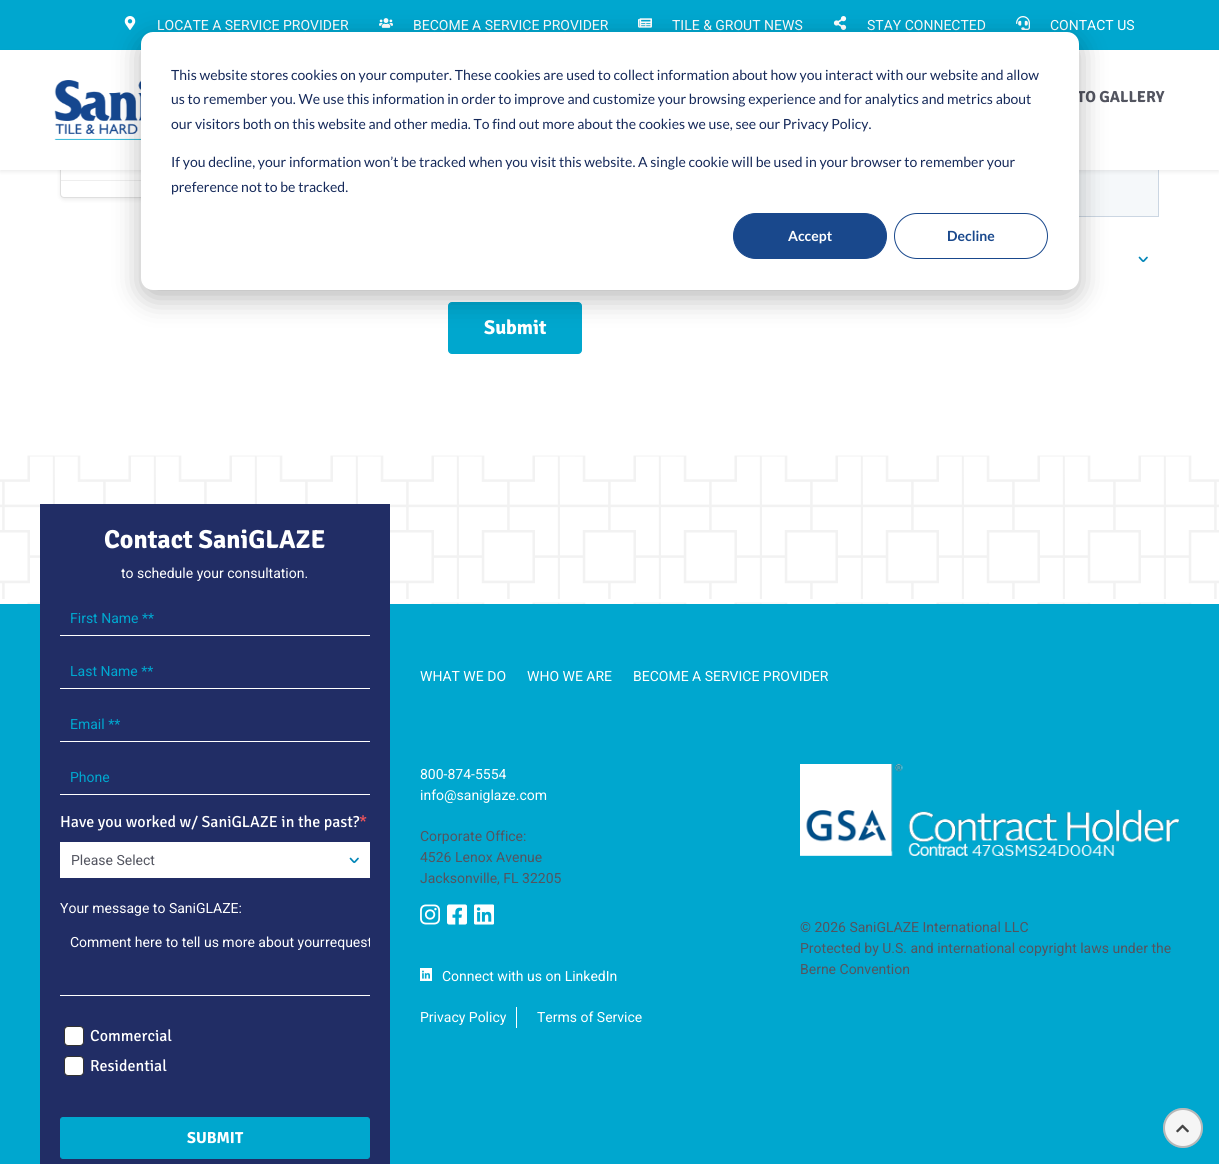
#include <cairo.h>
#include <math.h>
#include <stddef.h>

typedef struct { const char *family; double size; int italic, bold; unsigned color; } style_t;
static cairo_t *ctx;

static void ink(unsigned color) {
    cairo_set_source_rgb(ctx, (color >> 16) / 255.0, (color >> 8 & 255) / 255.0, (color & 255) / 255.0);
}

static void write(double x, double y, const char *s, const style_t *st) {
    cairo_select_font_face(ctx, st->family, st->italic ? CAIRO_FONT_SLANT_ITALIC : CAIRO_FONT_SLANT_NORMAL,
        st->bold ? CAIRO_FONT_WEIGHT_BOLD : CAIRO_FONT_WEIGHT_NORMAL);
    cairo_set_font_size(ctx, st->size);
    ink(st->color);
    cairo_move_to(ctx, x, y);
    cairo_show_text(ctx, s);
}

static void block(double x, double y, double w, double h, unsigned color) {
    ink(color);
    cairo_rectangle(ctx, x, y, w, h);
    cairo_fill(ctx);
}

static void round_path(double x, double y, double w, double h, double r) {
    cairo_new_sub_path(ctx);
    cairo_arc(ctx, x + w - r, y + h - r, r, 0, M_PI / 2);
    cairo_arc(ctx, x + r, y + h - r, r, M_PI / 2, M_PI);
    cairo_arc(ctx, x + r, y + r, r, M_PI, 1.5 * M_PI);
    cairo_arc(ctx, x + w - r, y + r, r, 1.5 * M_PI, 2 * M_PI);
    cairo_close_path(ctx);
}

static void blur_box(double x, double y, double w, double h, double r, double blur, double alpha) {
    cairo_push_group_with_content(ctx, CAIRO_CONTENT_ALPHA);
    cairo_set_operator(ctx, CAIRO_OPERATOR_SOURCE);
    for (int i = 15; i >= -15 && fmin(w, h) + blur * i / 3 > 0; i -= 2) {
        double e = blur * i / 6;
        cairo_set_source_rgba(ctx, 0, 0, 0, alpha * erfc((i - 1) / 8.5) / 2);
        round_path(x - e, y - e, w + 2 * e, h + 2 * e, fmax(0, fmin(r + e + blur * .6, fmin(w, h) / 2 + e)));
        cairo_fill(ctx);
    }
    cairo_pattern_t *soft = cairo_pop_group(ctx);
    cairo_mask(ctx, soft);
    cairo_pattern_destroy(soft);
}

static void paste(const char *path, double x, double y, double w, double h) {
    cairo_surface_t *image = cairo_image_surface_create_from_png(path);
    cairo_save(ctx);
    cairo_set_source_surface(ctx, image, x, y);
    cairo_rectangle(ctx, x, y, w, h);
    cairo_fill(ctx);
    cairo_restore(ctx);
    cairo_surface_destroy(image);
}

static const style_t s1 = {"Roboto", 14, 0, 0, 0xffffff};
static const style_t s2 = {"Signika", 16, 0, 1, 0x535560};
static const style_t s3 = {"Signika", 20, 0, 1, 0xffffff};
static const style_t s4 = {"Signika", 26, 0, 1, 0xffffff};
static const style_t s5 = {"Roboto", 14, 0, 0, 0x00a7cf};
static const style_t s6 = {"Signika", 16, 0, 0, 0xffffff};
static const style_t s7 = {"Signika", 16, 0, 0, 0xf2545b};
static const style_t s8 = {"Roboto", 14, 0, 0, 0x535560};
static const style_t s9 = {"Signika", 16, 0, 1, 0xffffff};
static const style_t s10 = {"Lato", 14, 0, 0, 0x15295a};
static const style_t s11 = {"Lato", 14, 0, 1, 0xffffff};
static const style_t s12 = {"Lato", 14, 0, 1, 0x19488c};

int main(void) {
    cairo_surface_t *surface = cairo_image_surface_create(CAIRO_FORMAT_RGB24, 1219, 1164);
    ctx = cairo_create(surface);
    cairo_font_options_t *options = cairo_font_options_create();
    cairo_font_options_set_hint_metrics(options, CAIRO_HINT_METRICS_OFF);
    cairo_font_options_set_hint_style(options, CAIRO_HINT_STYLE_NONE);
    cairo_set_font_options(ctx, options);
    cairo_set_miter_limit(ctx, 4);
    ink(0xffffff);
    cairo_paint(ctx);
    ink(0x000000);
    blur_box(60, -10, 263, 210, 4, 2, 0.07);
    ink(0xffffff);
    round_path(60.5, -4.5, 262, 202, 3.5);
    cairo_fill_preserve(ctx);
    ink(0xdfdfdf);
    cairo_set_line_width(ctx, 1);
    cairo_stroke(ctx);
    block(0, 0, 1219, 50, 0x00a7cf);
    paste("pic1.png", 124, 16, 12, 14);
    write(157, 30, "LOCATE A SERVICE PROVIDER", &s1);
    paste("pic2.png", 379, 18, 14, 10);
    write(413, 30, "BECOME A SERVICE PROVIDER", &s1);
    paste("pic3.png", 638, 18, 14, 10);
    write(672, 30, "TILE & GROUT NEWS", &s1);
    paste("pic4.png", 833, 16, 14, 14);
    write(867, 30, "STAY CONNECTED", &s1);
    paste("pic5.png", 1016, 16, 14, 14);
    write(1050, 30, "CONTACT US", &s1);
    block(1079, 170, 79, 46, 0xf5f8fa);
    cairo_rectangle(ctx, 448.5, 147.5, 710, 69);
    ink(0xcbd6e2);
    cairo_stroke(ctx);
    ink(0x000000);
    blur_box(0, 52, 1219, 120, 0, 2, 0.07);
    block(0, 50, 1219, 120, 0xffffff);
    paste("pic6.png", 54, 80, 87, 60);
    write(1077, 102, "TO GALLERY", &s2);
    block(61, 180, 80, 1, 0xeeeeee);
    cairo_new_path(ctx);
    cairo_move_to(ctx, 1139.5, 257.5);
    cairo_curve_to(ctx, 1144.5, 262.5, 1142, 262.5, 1147, 257.5);
    ink(0x0185b7);
    cairo_set_line_width(ctx, 1.7);
    cairo_set_line_cap(ctx, CAIRO_LINE_CAP_ROUND);
    cairo_set_line_join(ctx, CAIRO_LINE_JOIN_ROUND);
    cairo_stroke(ctx);
    ink(0x00a7ce);
    round_path(448.5, 302.5, 133, 51, 3.5);
    cairo_fill_preserve(ctx);
    cairo_set_line_width(ctx, 1);
    cairo_set_line_cap(ctx, CAIRO_LINE_CAP_BUTT);
    cairo_set_line_join(ctx, CAIRO_LINE_JOIN_MITER);
    cairo_stroke(ctx);
    write(484, 334, "Submit", &s3);
    paste("pic7.png", 0, 455, 1219, 149);
    block(0, 604, 1219, 560, 0x00a7cf);
    block(40, 504, 350, 660, 0x212d65);
    write(104, 548, "Contact SaniGLAZE", &s4);
    write(121, 578, "to schedule your consultation.", &s1);
    block(60, 635, 310, 1, 0xffffff);
    write(70, 623, "First Name **", &s5);
    block(60, 688, 310, 1, 0xffffff);
    write(70, 676, "Last Name **", &s5);
    block(60, 741, 310, 1, 0xffffff);
    write(70, 729, "Email **", &s5);
    block(60, 794, 310, 1, 0xffffff);
    write(70, 782, "Phone", &s5);
    write(60, 827, "Have you worked w/ SaniGLAZE in the past?", &s6);
    write(359, 827, "*", &s7);
    block(60, 842, 310, 36, 0xffffff);
    cairo_new_path(ctx);
    cairo_move_to(ctx, 350.5, 858.5);
    cairo_curve_to(ctx, 355.5, 863.5, 353, 863.5, 358, 858.5);
    ink(0x0185b7);
    cairo_set_line_width(ctx, 1.7);
    cairo_set_line_cap(ctx, CAIRO_LINE_CAP_ROUND);
    cairo_set_line_join(ctx, CAIRO_LINE_JOIN_ROUND);
    cairo_stroke(ctx);
    write(71, 865, "Please Select", &s8);
    write(60, 913, "Your message to SaniGLAZE:", &s1);
    block(60, 995, 310, 1, 0xffffff);
    write(70, 947, "Comment here to tell us more about your", &s1);
    cairo_save(ctx);
    cairo_rectangle(ctx, 60, 926, 310, 69);
    cairo_clip(ctx);
    write(325, 947, "request", &s1);
    cairo_restore(ctx);
    round_path(64.5, 1026.5, 19, 19, 3.5);
    cairo_fill_preserve(ctx);
    ink(0x323232);
    cairo_set_line_width(ctx, 1);
    cairo_set_line_cap(ctx, CAIRO_LINE_CAP_BUTT);
    cairo_set_line_join(ctx, CAIRO_LINE_JOIN_MITER);
    cairo_stroke(ctx);
    write(90, 1041, "Commercial", &s6);
    round_path(64.5, 1056.5, 19, 19, 3.5);
    cairo_fill_preserve(ctx);
    ink(0x323232);
    cairo_stroke(ctx);
    write(90, 1071, "Residential", &s6);
    ink(0x00a7ce);
    round_path(60.5, 1117.5, 309, 41, 2.5);
    cairo_fill_preserve(ctx);
    cairo_stroke(ctx);
    write(187, 1143, "SUBMIT", &s9);
    write(420, 681, "WHAT WE DO", &s1);
    write(527, 681, "WHO WE ARE", &s1);
    write(633, 681, "BECOME A SERVICE PROVIDER", &s1);
    write(420, 779, "800-874-5554", &s1);
    write(420, 800, "info@saniglaze.com", &s1);
    write(420, 841, "Corporate Office:", &s8);
    write(420, 862, "4526 Lenox Avenue", &s8);
    write(420, 883, "Jacksonville, FL 32205", &s8);
    paste("pic8.png", 420, 904, 20, 21);
    paste("pic9.png", 447, 904, 20, 21);
    paste("pic10.png", 474, 904, 20, 21);
    block(420, 968, 12, 13, 0xffffff);
    paste("pic11.png", 422, 970, 8, 9);
    write(442, 981, "Connect with us on LinkedIn", &s1);
    block(516, 1007, 1, 21, 0xffffff);
    write(420, 1022, "Privacy Policy", &s1);
    write(537, 1022, "Terms of Service", &s1);
    paste("pic12.png", 800, 764, 379, 92);
    write(800, 932, "© 2026 SaniGLAZE International LLC", &s8);
    write(800, 953, "Protected by U.S. and international copyright laws under the", &s8);
    write(800, 974, "Berne Convention", &s8);
    ink(0x000000);
    blur_box(141, 40, 938, 258, 12, 14, 0.28);
    ink(0xffffff);
    round_path(141, 32, 938, 258, 12);
    cairo_fill(ctx);
    write(171, 80, "This website stores cookies on your computer. These cookies are used to collect information about how you interact with our website and allow", &s10);
    write(171, 104, "us to remember you. We use this information in order to improve and customize your browsing experience and for analytics and metrics about", &s10);
    write(171, 129, "our visitors both on this website and other media. To find out more about the cookies we use, see our Privacy Policy.", &s10);
    write(171, 167, "If you decline, your information won’t be tracked when you visit this website. A single cookie will be used in your browser to remember your", &s10);
    write(171, 192, "preference not to be tracked.", &s10);
    ink(0x19488c);
    round_path(733.5, 213.5, 153, 45, 22.5);
    cairo_fill_preserve(ctx);
    cairo_stroke(ctx);
    write(788, 241, "Accept", &s11);
    round_path(894.5, 213.5, 153, 45, 22.5);
    ink(0x19488c);
    cairo_stroke(ctx);
    write(947, 241, "Decline", &s12);
    ink(0xf5f5f5);
    cairo_new_path(ctx);
    cairo_arc(ctx, 1183, 1128, 20, 0, 2 * M_PI);
    cairo_fill(ctx);
    cairo_arc(ctx, 1183, 1128, 19, 0, 2 * M_PI);
    cairo_set_source_rgba(ctx, 0, 0, 0, 0.25);
    cairo_set_line_width(ctx, 2);
    cairo_stroke(ctx);
    paste("pic13.png", 1176, 1124, 13, 9);
    cairo_surface_write_to_png(surface, "screenshot.png");
    cairo_font_options_destroy(options);
    cairo_destroy(ctx);
    cairo_surface_destroy(surface);
    return 0;
}
